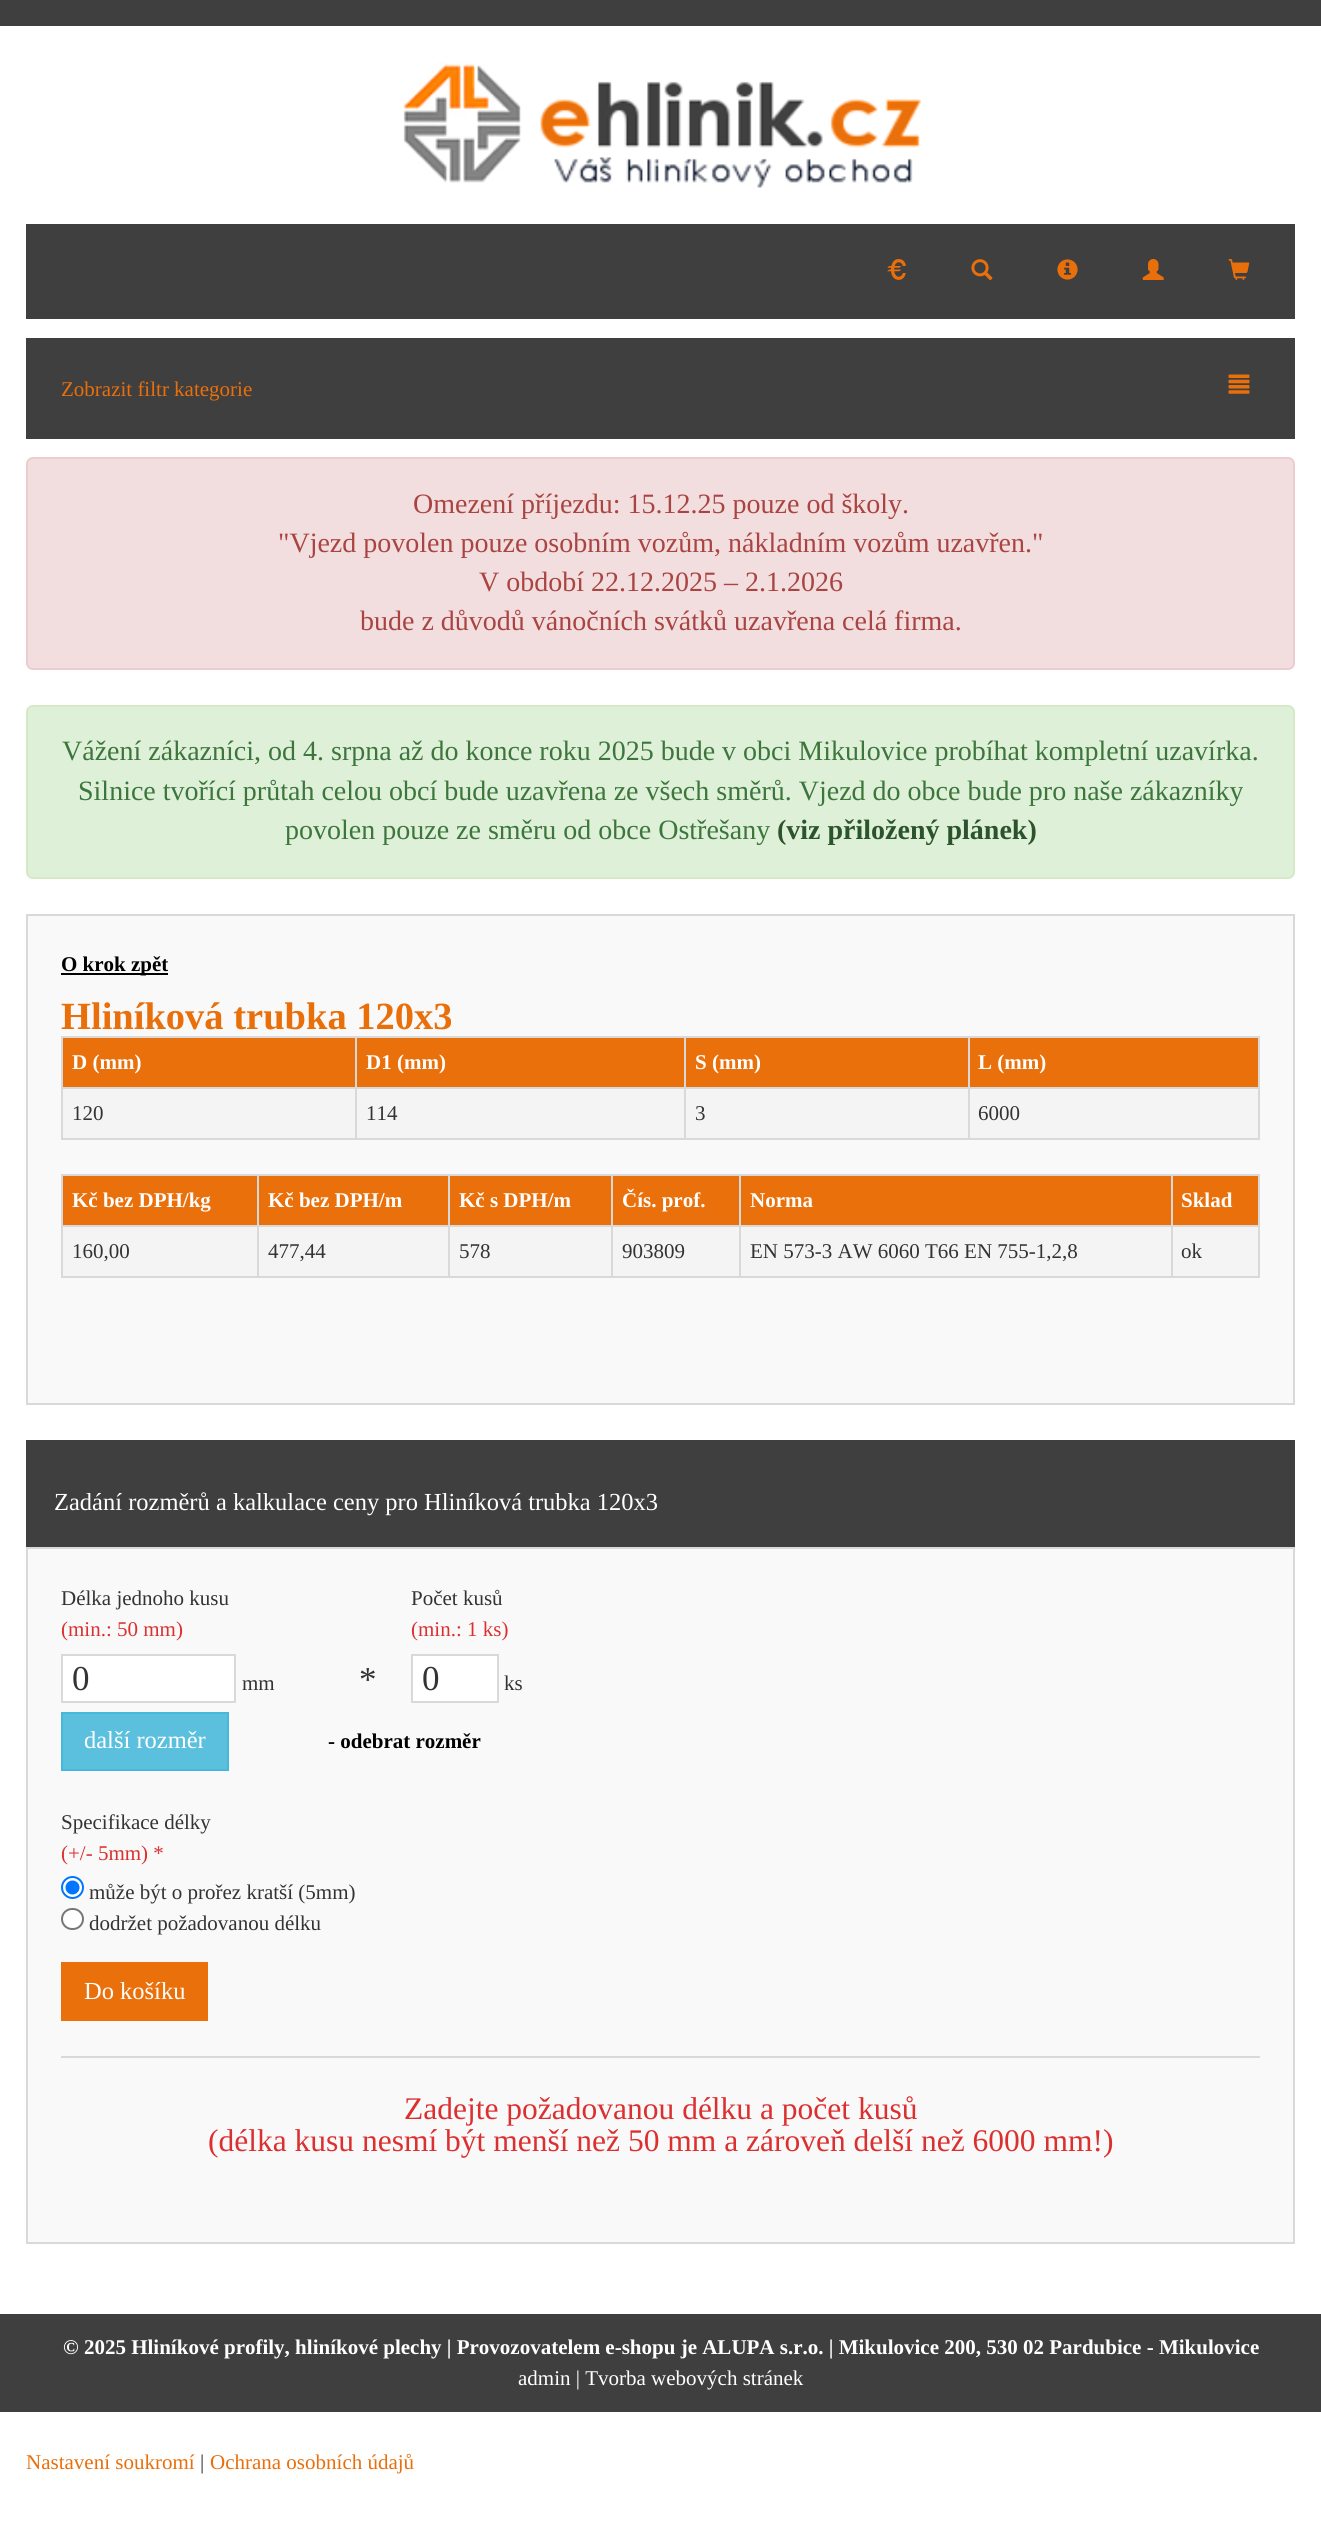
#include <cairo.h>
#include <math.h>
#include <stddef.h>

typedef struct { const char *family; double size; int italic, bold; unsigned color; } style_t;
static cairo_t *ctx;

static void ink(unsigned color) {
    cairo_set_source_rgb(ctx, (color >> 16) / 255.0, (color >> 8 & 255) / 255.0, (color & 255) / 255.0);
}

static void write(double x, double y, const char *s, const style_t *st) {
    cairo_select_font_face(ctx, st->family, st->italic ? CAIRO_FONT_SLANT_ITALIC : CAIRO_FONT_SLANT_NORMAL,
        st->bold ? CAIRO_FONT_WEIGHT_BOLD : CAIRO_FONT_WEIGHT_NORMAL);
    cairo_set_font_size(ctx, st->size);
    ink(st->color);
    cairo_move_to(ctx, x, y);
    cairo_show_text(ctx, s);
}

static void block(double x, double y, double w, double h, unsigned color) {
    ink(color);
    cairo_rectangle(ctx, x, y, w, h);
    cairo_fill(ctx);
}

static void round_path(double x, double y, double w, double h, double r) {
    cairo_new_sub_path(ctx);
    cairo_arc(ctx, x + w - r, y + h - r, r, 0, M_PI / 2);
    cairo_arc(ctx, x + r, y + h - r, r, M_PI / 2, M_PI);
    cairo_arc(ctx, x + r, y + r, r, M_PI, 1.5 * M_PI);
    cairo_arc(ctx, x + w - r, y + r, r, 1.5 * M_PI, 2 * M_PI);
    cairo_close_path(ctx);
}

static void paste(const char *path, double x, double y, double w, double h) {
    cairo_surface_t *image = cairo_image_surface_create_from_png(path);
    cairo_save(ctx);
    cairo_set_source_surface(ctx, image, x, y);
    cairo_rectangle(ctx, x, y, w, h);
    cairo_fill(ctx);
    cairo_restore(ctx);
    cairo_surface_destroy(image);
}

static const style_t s1 = {"Liberation Serif", 21, 0, 0, 0xe96f0b};
static const style_t s2 = {"Liberation Serif", 28, 0, 0, 0xa94442};
static const style_t s3 = {"Liberation Serif", 28, 0, 0, 0x3c763d};
static const style_t s4 = {"Liberation Serif", 28, 0, 1, 0x2b542c};
static const style_t s5 = {"Liberation Serif", 21, 0, 1, 0x000000};
static const style_t s6 = {"Liberation Serif", 38.5, 0, 1, 0xe96f0b};
static const style_t s7 = {"Liberation Serif", 21, 0, 1, 0xffffff};
static const style_t s8 = {"Liberation Serif", 21, 0, 0, 0x333333};
static const style_t s9 = {"Liberation Serif", 24.5, 0, 0, 0xffffff};
static const style_t s10 = {"Liberation Serif", 21, 0, 0, 0xdc3030};
static const style_t s11 = {"Liberation Serif", 35, 0, 0, 0x333333};
static const style_t s12 = {"Liberation Serif", 31.5, 0, 0, 0xdc3030};
static const style_t s13 = {"Liberation Serif", 21, 0, 0, 0xffffff};

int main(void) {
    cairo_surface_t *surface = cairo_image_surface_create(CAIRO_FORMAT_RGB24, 1321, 2526);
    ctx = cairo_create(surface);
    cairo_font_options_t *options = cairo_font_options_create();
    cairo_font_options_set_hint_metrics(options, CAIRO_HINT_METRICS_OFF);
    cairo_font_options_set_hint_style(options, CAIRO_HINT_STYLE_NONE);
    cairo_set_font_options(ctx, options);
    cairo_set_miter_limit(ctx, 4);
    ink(0xffffff);
    cairo_paint(ctx);
    block(0, 0, 1321, 26, 0x3f3f3f);
    paste("pic1.png", 403, 62, 518, 126);
    block(26, 224, 1269, 95, 0x3f3f3f);
    paste("pic2.png", 887, 259, 19, 21);
    paste("pic3.png", 971, 259, 22, 22);
    paste("pic4.png", 1057, 259, 21, 21);
    paste("pic5.png", 1142, 259, 22, 21);
    paste("pic6.png", 1228, 259, 22, 21);
    block(26, 338, 1269, 101, 0x3f3f3f);
    write(61, 396, "Zobrazit filtr kategorie", &s1);
    paste("pic7.png", 1228, 374, 22, 20);
    ink(0xf2dede);
    round_path(27, 458, 1267, 211, 6);
    cairo_fill_preserve(ctx);
    ink(0xebccd1);
    cairo_stroke(ctx);
    write(413, 513, "Omezení příjezdu: 15.12.25 pouze od školy.", &s2);
    write(278, 552, "\"Vjezd povolen pouze osobním vozům, nákladním vozům uzavřen.\"", &s2);
    write(479, 591, "V období 22.12.2025 – 2.1.2026", &s2);
    write(360, 630, "bude z důvodů vánočních svátků uzavřena celá firma.", &s2);
    ink(0xdff0d8);
    round_path(27, 706, 1267, 172, 6);
    cairo_fill_preserve(ctx);
    ink(0xd6e9c6);
    cairo_stroke(ctx);
    write(62, 760, "Vážení zákazníci, od 4. srpna až do konce roku 2025 bude v obci Mikulovice probíhat kompletní uzavírka.", &s3);
    write(78, 800, "Silnice tvořící průtah celou obcí bude uzavřena ze všech směrů. Vjezd do obce bude pro naše zákazníky", &s3);
    write(285, 839, "povolen pouze ze směru od obce Ostřešany", &s3);
    write(777, 839, "(viz přiložený plánek)", &s4);
    ink(0xf9f9f9);
    cairo_rectangle(ctx, 27, 915, 1267, 489);
    cairo_fill_preserve(ctx);
    ink(0xd9d9d9);
    cairo_stroke(ctx);
    block(61, 973, 107, 2, 0x000000);
    write(61, 971, "O krok zpět", &s5);
    write(61, 1029, "Hliníková trubka 120x3", &s6);
    block(63, 1038, 292, 49, 0xea700b);
    block(968, 1036, 292, 2, 0xd9d9d9);
    block(968, 1087, 292, 2, 0xd9d9d9);
    block(63, 1089, 1195, 49, 0xf4f4f4);
    block(1258, 1087, 2, 52, 0xd9d9d9);
    block(968, 1138, 292, 2, 0xd9d9d9);
    block(968, 1087, 2, 52, 0xd9d9d9);
    block(684, 1087, 286, 2, 0xd9d9d9);
    block(968, 1036, 2, 53, 0xd9d9d9);
    block(684, 1036, 286, 2, 0xd9d9d9);
    block(684, 1138, 286, 2, 0xd9d9d9);
    block(684, 1087, 2, 52, 0xd9d9d9);
    block(355, 1087, 331, 2, 0xd9d9d9);
    block(684, 1036, 2, 53, 0xd9d9d9);
    block(355, 1036, 331, 2, 0xd9d9d9);
    block(355, 1138, 331, 2, 0xd9d9d9);
    block(355, 1087, 2, 52, 0xd9d9d9);
    block(61, 1087, 296, 2, 0xd9d9d9);
    block(355, 1036, 2, 53, 0xd9d9d9);
    block(61, 1036, 296, 2, 0xd9d9d9);
    block(61, 1138, 296, 2, 0xd9d9d9);
    block(61, 1087, 2, 52, 0xd9d9d9);
    block(61, 1036, 2, 53, 0xd9d9d9);
    write(72, 1069, "D (mm)", &s7);
    block(357, 1038, 327, 49, 0xea700b);
    write(366, 1069, "D1 (mm)", &s7);
    block(686, 1038, 282, 49, 0xea700b);
    write(695, 1069, "S (mm)", &s7);
    block(970, 1038, 288, 49, 0xea700b);
    block(1258, 1036, 2, 53, 0xd9d9d9);
    write(978, 1069, "L (mm)", &s7);
    write(72, 1120, "120", &s8);
    write(366, 1120, "114", &s8);
    write(695, 1120, "3", &s8);
    write(978, 1120, "6000", &s8);
    block(63, 1176, 194, 49, 0xea700b);
    block(1171, 1174, 89, 2, 0xd9d9d9);
    block(1171, 1225, 89, 2, 0xd9d9d9);
    block(63, 1227, 1195, 49, 0xf4f4f4);
    block(1258, 1225, 2, 53, 0xd9d9d9);
    block(1171, 1276, 89, 2, 0xd9d9d9);
    block(1171, 1225, 2, 53, 0xd9d9d9);
    block(739, 1225, 434, 2, 0xd9d9d9);
    block(1171, 1174, 2, 53, 0xd9d9d9);
    block(739, 1174, 434, 2, 0xd9d9d9);
    block(739, 1276, 434, 2, 0xd9d9d9);
    block(739, 1225, 2, 53, 0xd9d9d9);
    block(611, 1225, 129, 2, 0xd9d9d9);
    block(739, 1174, 2, 53, 0xd9d9d9);
    block(611, 1174, 129, 2, 0xd9d9d9);
    block(611, 1276, 129, 2, 0xd9d9d9);
    block(611, 1225, 2, 53, 0xd9d9d9);
    block(448, 1225, 165, 2, 0xd9d9d9);
    block(611, 1174, 2, 53, 0xd9d9d9);
    block(448, 1174, 165, 2, 0xd9d9d9);
    block(448, 1276, 165, 2, 0xd9d9d9);
    block(448, 1225, 2, 53, 0xd9d9d9);
    block(257, 1225, 193, 2, 0xd9d9d9);
    block(448, 1174, 2, 53, 0xd9d9d9);
    block(257, 1174, 193, 2, 0xd9d9d9);
    block(257, 1276, 193, 2, 0xd9d9d9);
    block(257, 1225, 2, 53, 0xd9d9d9);
    block(61, 1225, 198, 2, 0xd9d9d9);
    block(257, 1174, 2, 53, 0xd9d9d9);
    block(61, 1174, 198, 2, 0xd9d9d9);
    block(61, 1276, 198, 2, 0xd9d9d9);
    block(61, 1225, 2, 53, 0xd9d9d9);
    block(61, 1174, 2, 53, 0xd9d9d9);
    write(72, 1207, "Kč bez DPH/kg", &s7);
    block(259, 1176, 189, 49, 0xea700b);
    write(268, 1207, "Kč bez DPH/m", &s7);
    block(450, 1176, 161, 49, 0xea700b);
    write(459, 1207, "Kč s DPH/m", &s7);
    block(613, 1176, 126, 49, 0xea700b);
    write(622, 1207, "Čís. prof.", &s7);
    block(741, 1176, 430, 49, 0xea700b);
    write(750, 1207, "Norma", &s7);
    block(1173, 1176, 85, 49, 0xea700b);
    block(1258, 1174, 2, 53, 0xd9d9d9);
    write(1181, 1207, "Sklad", &s7);
    write(72, 1258, "160,00", &s8);
    write(268, 1258, "477,44", &s8);
    write(459, 1258, "578", &s8);
    write(622, 1258, "903809", &s8);
    write(750, 1258, "EN 573-3 AW 6060 T66 EN 755-1,2,8", &s8);
    write(1181, 1258, "ok", &s8);
    block(26, 1440, 1269, 107, 0x3f3f3f);
    write(54, 1510, "Zadání rozměrů a kalkulace ceny pro Hliníková trubka 120x3", &s9);
    ink(0xf9f9f9);
    cairo_rectangle(ctx, 27, 1548, 1267, 695);
    cairo_fill_preserve(ctx);
    ink(0xd9d9d9);
    cairo_stroke(ctx);
    block(61, 2056, 1199, 2, 0xd9d9d9);
    write(61, 1605, "Délka jednoho kusu", &s8);
    write(61, 1636, "(min.: 50 mm)", &s10);
    write(411, 1605, "Počet kusů", &s8);
    write(411, 1636, "(min.: 1 ks)", &s10);
    ink(0xffffff);
    cairo_rectangle(ctx, 62, 1655, 173, 47);
    cairo_fill_preserve(ctx);
    ink(0xd9d9d9);
    cairo_stroke(ctx);
    write(72, 1690, "0", &s11);
    write(242, 1690, "mm", &s8);
    write(359, 1691, "*", &s11);
    ink(0xffffff);
    cairo_rectangle(ctx, 412, 1655, 86, 47);
    cairo_fill_preserve(ctx);
    ink(0xd9d9d9);
    cairo_stroke(ctx);
    write(422, 1690, "0", &s11);
    write(504, 1690, "ks", &s8);
    ink(0x5bc0de);
    cairo_rectangle(ctx, 62, 1713, 166, 57);
    cairo_fill_preserve(ctx);
    ink(0x46b8da);
    cairo_stroke(ctx);
    write(84, 1748, "další rozměr", &s9);
    write(328, 1748, "- odebrat rozměr", &s5);
    write(61, 1829, "Specifikace délky", &s8);
    write(61, 1860, "(+/- 5mm) *", &s10);
    ink(0xffffff);
    cairo_new_path(ctx);
    cairo_arc(ctx, 72.5, 1887.5, 10.5, 0, 2 * M_PI);
    cairo_fill_preserve(ctx);
    ink(0x0075ff);
    cairo_stroke(ctx);
    cairo_arc(ctx, 72.5, 1887.5, 7, 0, 2 * M_PI);
    cairo_fill(ctx);
    write(89, 1899, "může být o prořez kratší (5mm)", &s8);
    ink(0xffffff);
    round_path(62, 1909, 21, 20, 10);
    cairo_fill_preserve(ctx);
    ink(0x767676);
    cairo_stroke(ctx);
    write(89, 1930, "dodržet požadovanou délku", &s8);
    block(61, 1962, 147, 59, 0xea700b);
    write(84, 1999, "Do košíku", &s9);
    write(404, 2119, "Zadejte požadovanou délku a počet kusů", &s12);
    write(208, 2151, "(délka kusu nesmí být menší než 50 mm a zároveň delší než 6000 mm!)", &s12);
    block(0, 2314, 1321, 98, 0x3f3f3f);
    write(63, 2354, "© 2025 Hliníkové profily, hliníkové plechy | Provozovatelem e-shopu je ALUPA s.r.o. | Mikulovice 200, 530 02 Pardubice - Mikulovice", &s7);
    write(518, 2385, "admin | Tvorba webových stránek", &s13);
    write(26, 2469, "Nastavení soukromí", &s1);
    write(200, 2469, "|", &s8);
    write(210, 2469, "Ochrana osobních údajů", &s1);
    cairo_surface_write_to_png(surface, "screenshot.png");
    cairo_font_options_destroy(options);
    cairo_destroy(ctx);
    cairo_surface_destroy(surface);
    return 0;
}
